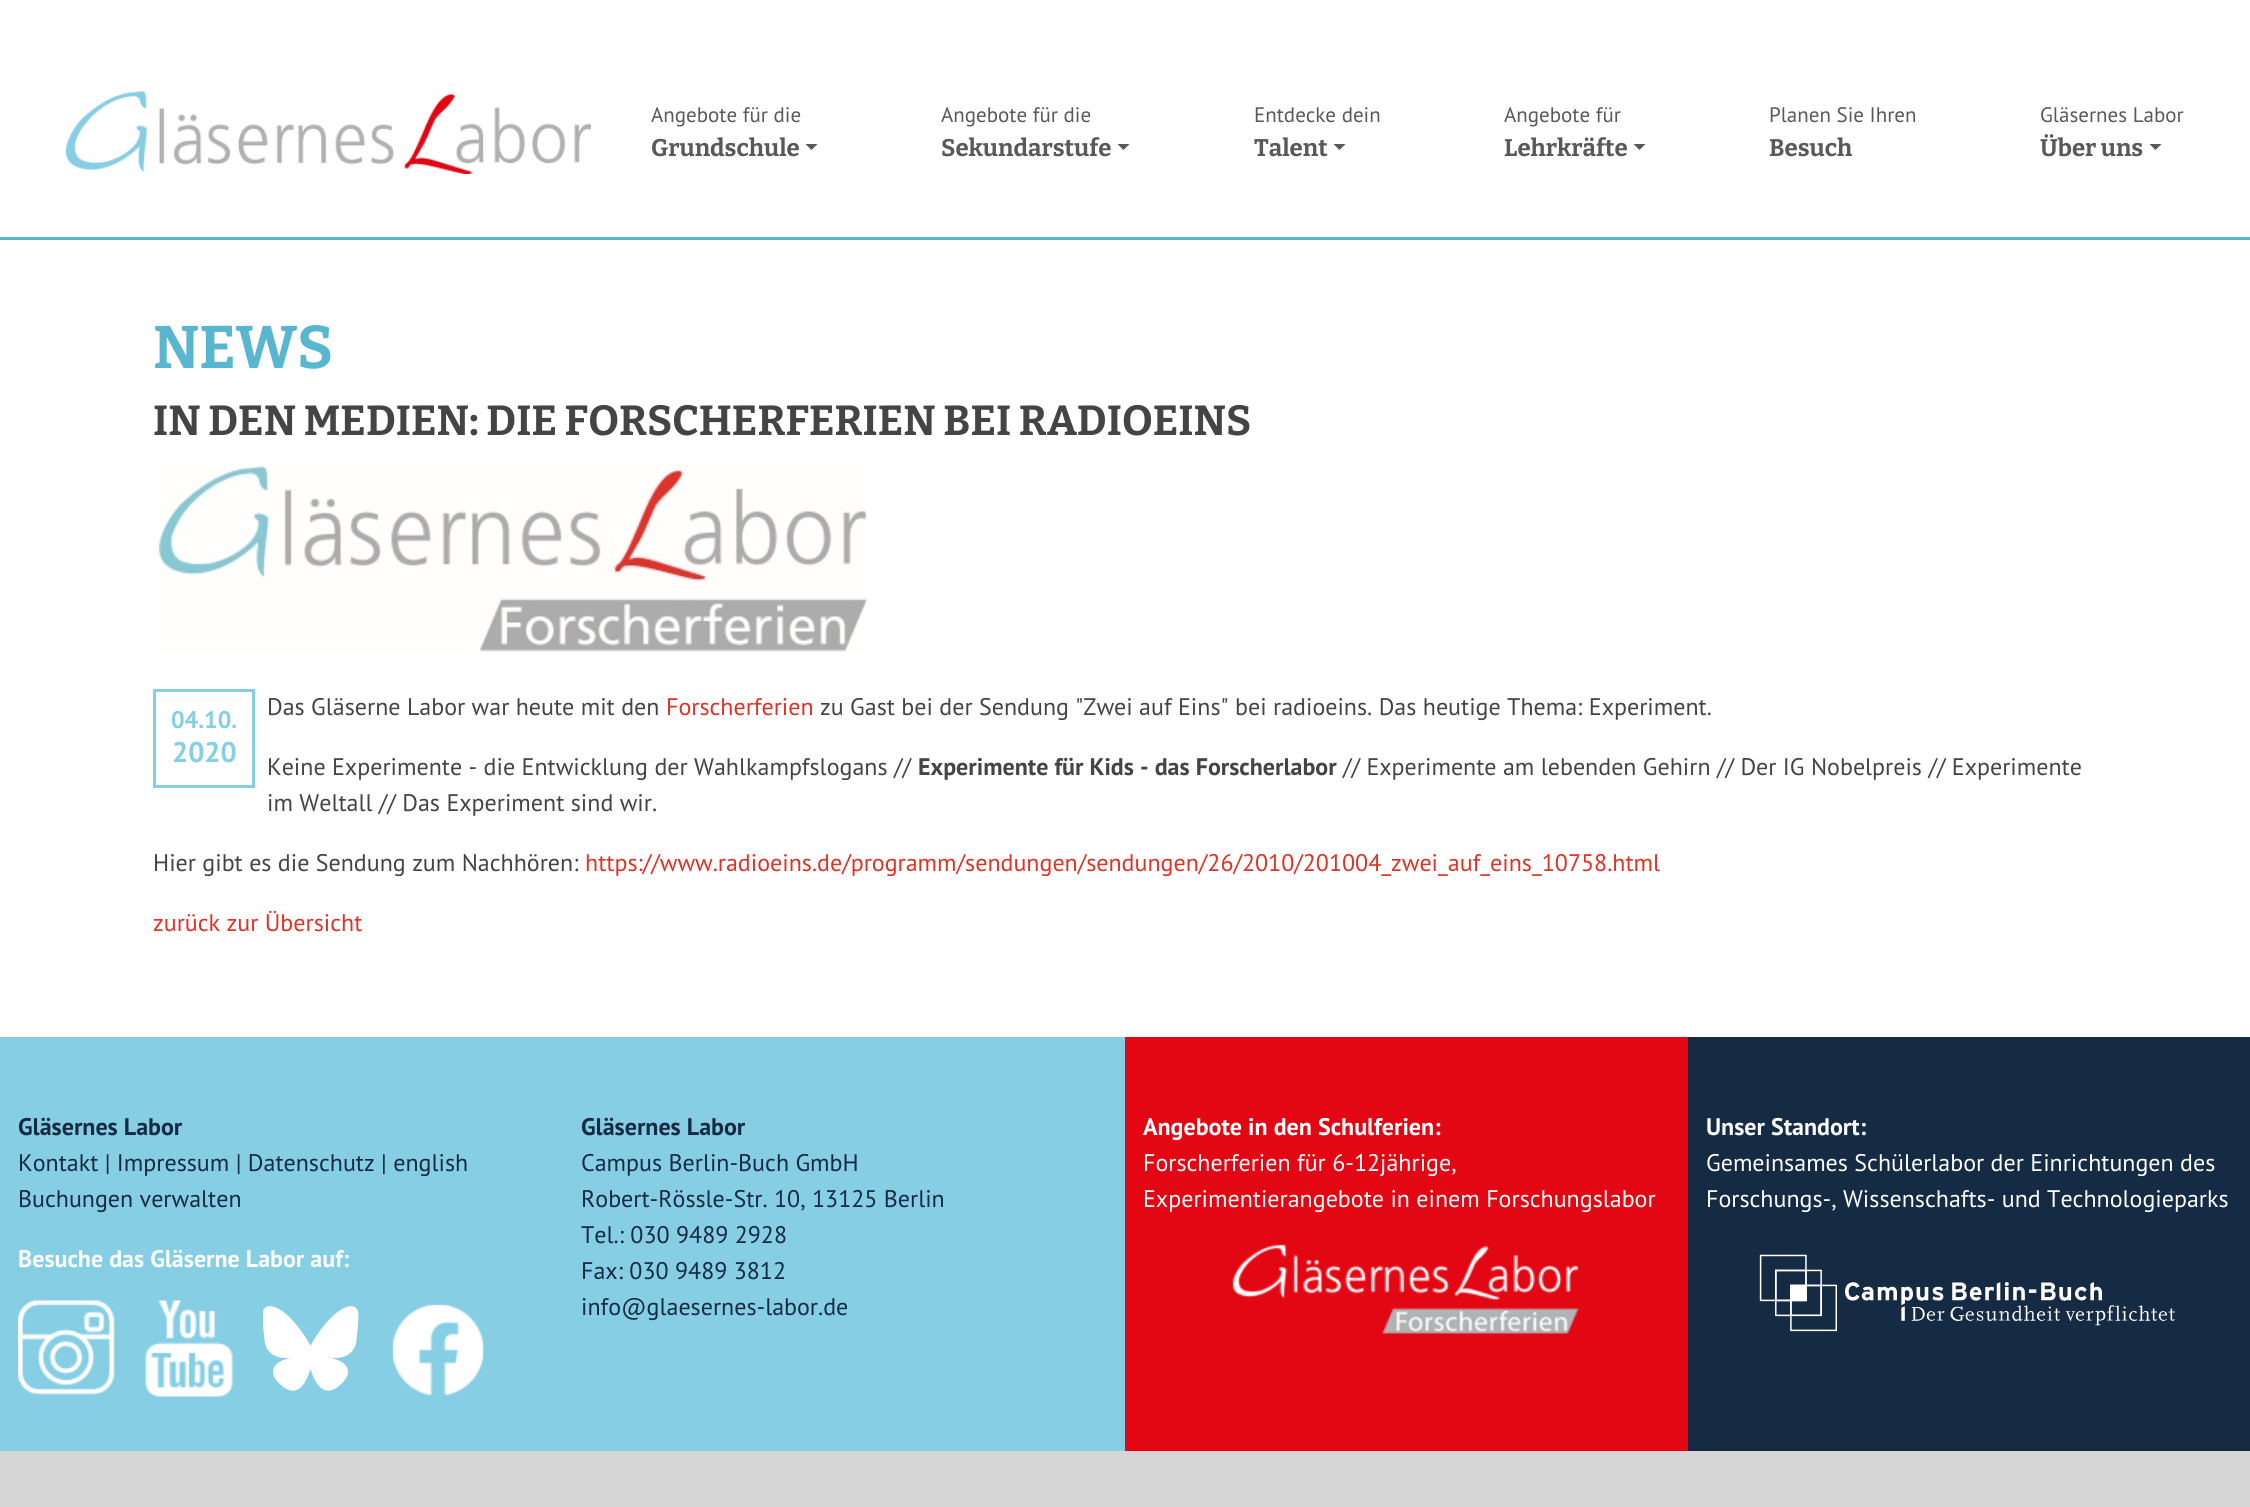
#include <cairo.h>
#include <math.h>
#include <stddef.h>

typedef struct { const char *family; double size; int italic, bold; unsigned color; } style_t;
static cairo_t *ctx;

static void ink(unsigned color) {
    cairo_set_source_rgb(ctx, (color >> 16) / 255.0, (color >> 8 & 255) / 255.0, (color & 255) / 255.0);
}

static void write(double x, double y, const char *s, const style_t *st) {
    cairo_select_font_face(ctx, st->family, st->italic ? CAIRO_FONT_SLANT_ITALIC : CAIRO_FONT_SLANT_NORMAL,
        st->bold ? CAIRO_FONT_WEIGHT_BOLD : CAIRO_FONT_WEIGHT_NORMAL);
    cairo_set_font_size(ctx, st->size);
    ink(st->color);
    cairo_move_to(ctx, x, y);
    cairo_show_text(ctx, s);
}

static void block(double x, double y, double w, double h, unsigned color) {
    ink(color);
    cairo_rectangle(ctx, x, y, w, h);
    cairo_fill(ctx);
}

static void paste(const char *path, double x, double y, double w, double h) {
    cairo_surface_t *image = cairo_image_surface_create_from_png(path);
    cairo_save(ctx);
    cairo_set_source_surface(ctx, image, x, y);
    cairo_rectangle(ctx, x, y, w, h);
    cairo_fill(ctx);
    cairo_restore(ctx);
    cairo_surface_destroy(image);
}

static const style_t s1 = {"PT Sans", 21, 0, 0, 0x595959};
static const style_t s2 = {"Bitter", 24, 0, 1, 0x595959};
static const style_t s3 = {"Bitter", 60, 0, 1, 0x59b6d1};
static const style_t s4 = {"Bitter", 42, 0, 1, 0x444444};
static const style_t s5 = {"PT Sans", 24, 0, 1, 0x85cee4};
static const style_t s6 = {"PT Sans", 28.5, 0, 1, 0x85cee4};
static const style_t s7 = {"PT Sans", 24, 0, 0, 0x444444};
static const style_t s8 = {"PT Sans", 24, 0, 0, 0xdf3226};
static const style_t s9 = {"PT Sans", 24, 0, 1, 0x444444};
static const style_t s10 = {"PT Sans", 24, 0, 1, 0x152a43};
static const style_t s11 = {"PT Sans", 24, 0, 0, 0x152a43};
static const style_t s12 = {"PT Sans", 24, 0, 1, 0xffffff};
static const style_t s13 = {"PT Sans", 24, 0, 0, 0xffffff};

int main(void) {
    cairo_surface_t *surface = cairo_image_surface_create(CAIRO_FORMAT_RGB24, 2250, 1507);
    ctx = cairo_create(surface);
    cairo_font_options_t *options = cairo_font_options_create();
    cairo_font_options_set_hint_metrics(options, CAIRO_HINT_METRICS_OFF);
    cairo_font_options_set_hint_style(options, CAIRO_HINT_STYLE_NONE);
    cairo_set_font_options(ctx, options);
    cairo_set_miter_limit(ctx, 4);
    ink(0xffffff);
    cairo_paint(ctx);
    block(0, 237, 2250, 3, 0x59b6d1);
    paste("pic1.png", 66, 91, 525, 83);
    write(651, 122, "Angebote für die", &s1);
    write(651, 156, "Grundschule", &s2);
    cairo_new_path(ctx);
    cairo_move_to(ctx, 805.5, 144);
    cairo_line_to(ctx, 817.5, 144);
    cairo_line_to(ctx, 811.5, 150);
    cairo_close_path(ctx);
    cairo_fill(ctx);
    write(941, 122, "Angebote für die", &s1);
    write(941, 156, "Sekundarstufe", &s2);
    cairo_new_path(ctx);
    cairo_move_to(ctx, 1117.5, 144);
    cairo_line_to(ctx, 1129.5, 144);
    cairo_line_to(ctx, 1123.5, 150);
    cairo_close_path(ctx);
    cairo_fill(ctx);
    write(1254, 122, "Entdecke dein", &s1);
    write(1254, 156, "Talent", &s2);
    cairo_new_path(ctx);
    cairo_move_to(ctx, 1333.5, 144);
    cairo_line_to(ctx, 1345.5, 144);
    cairo_line_to(ctx, 1339.5, 150);
    cairo_close_path(ctx);
    cairo_fill(ctx);
    write(1504, 122, "Angebote für", &s1);
    write(1504, 156, "Lehrkräfte", &s2);
    cairo_new_path(ctx);
    cairo_move_to(ctx, 1633.5, 144);
    cairo_line_to(ctx, 1645.5, 144);
    cairo_line_to(ctx, 1639.5, 150);
    cairo_close_path(ctx);
    cairo_fill(ctx);
    write(1769, 122, "Planen Sie Ihren", &s1);
    write(1769, 156, "Besuch", &s2);
    write(2040, 122, "Gläsernes Labor", &s1);
    write(2040, 156, "Über uns", &s2);
    cairo_new_path(ctx);
    cairo_move_to(ctx, 2149.5, 144);
    cairo_line_to(ctx, 2161.5, 144);
    cairo_line_to(ctx, 2155.5, 150);
    cairo_close_path(ctx);
    cairo_fill(ctx);
    write(153, 368, "NEWS", &s3);
    write(153, 435, "IN DEN MEDIEN: DIE FORSCHERFERIEN BEI RADIOEINS", &s4);
    paste("pic2.png", 153, 465, 715, 187);
    cairo_rectangle(ctx, 154.5, 690.5, 99, 96);
    ink(0x85cee4);
    cairo_set_line_width(ctx, 3);
    cairo_stroke(ctx);
    write(171, 728, "04.10.", &s5);
    write(172, 762, "2020", &s6);
    write(267, 715, "Das Gläserne Labor war heute mit den", &s7);
    write(666, 715, "Forscherferien", &s8);
    write(820, 715, "zu Gast bei der Sendung \"Zwei auf Eins\" bei radioeins. Das heutige Thema: Experiment.", &s7);
    write(267, 775, "Keine Experimente - die Entwicklung der Wahlkampfslogans //", &s7);
    write(918, 775, "Experimente für Kids - das Forscherlabor", &s9);
    write(1343, 775, "// Experimente am lebenden Gehirn // Der IG Nobelpreis // Experimente", &s7);
    write(267, 811, "im Weltall // Das Experiment sind wir.", &s7);
    write(153, 871, "Hier gibt es die Sendung zum Nachhören:", &s7);
    write(585, 871, "https://www.radioeins.de/programm/sendungen/sendungen/26/2010/201004_zwei_auf_eins_10758.html", &s8);
    write(153, 931, "zurück zur Übersicht", &s8);
    block(0, 1451, 2250, 56, 0xd6d6d6);
    block(0, 1037, 1125, 414, 0x85cee4);
    write(18, 1135, "Gläsernes Labor", &s10);
    write(18, 1171, "Kontakt | Impressum | Datenschutz | english", &s11);
    write(18, 1207, "Buchungen verwalten", &s11);
    write(18, 1267, "Besuche das Gläserne Labor auf:", &s12);
    paste("pic3.png", 18, 1300, 97, 95);
    paste("pic4.png", 145, 1300, 88, 97);
    paste("pic5.png", 263, 1306, 96, 85);
    paste("pic6.png", 392, 1304, 92, 92);
    write(581, 1135, "Gläsernes Labor", &s10);
    write(581, 1171, "Campus Berlin-Buch GmbH", &s11);
    write(581, 1207, "Robert-Rössle-Str. 10, 13125 Berlin", &s11);
    write(581, 1243, "Tel.: 030 9489 2928", &s11);
    write(581, 1279, "Fax: 030 9489 3812", &s11);
    write(581, 1315, "info@glaesernes-labor.de", &s11);
    block(1125, 1037, 563, 414, 0xe30613);
    write(1143, 1135, "Angebote in den Schulferien:", &s12);
    write(1143, 1171, "Forscherferien für 6-12jährige,", &s13);
    write(1143, 1207, "Experimentierangebote in einem Forschungslabor", &s13);
    paste("pic7.png", 1232, 1244, 347, 90);
    block(1688, 1037, 562, 414, 0x152a43);
    write(1706, 1135, "Unser Standort:", &s12);
    write(1706, 1171, "Gemeinsames Schülerlabor der Einrichtungen des", &s13);
    write(1706, 1207, "Forschungs-, Wissenschafts- und Technologieparks", &s13);
    paste("pic8.png", 1759, 1254, 416, 78);
    cairo_surface_write_to_png(surface, "screenshot.png");
    cairo_font_options_destroy(options);
    cairo_destroy(ctx);
    cairo_surface_destroy(surface);
    return 0;
}
